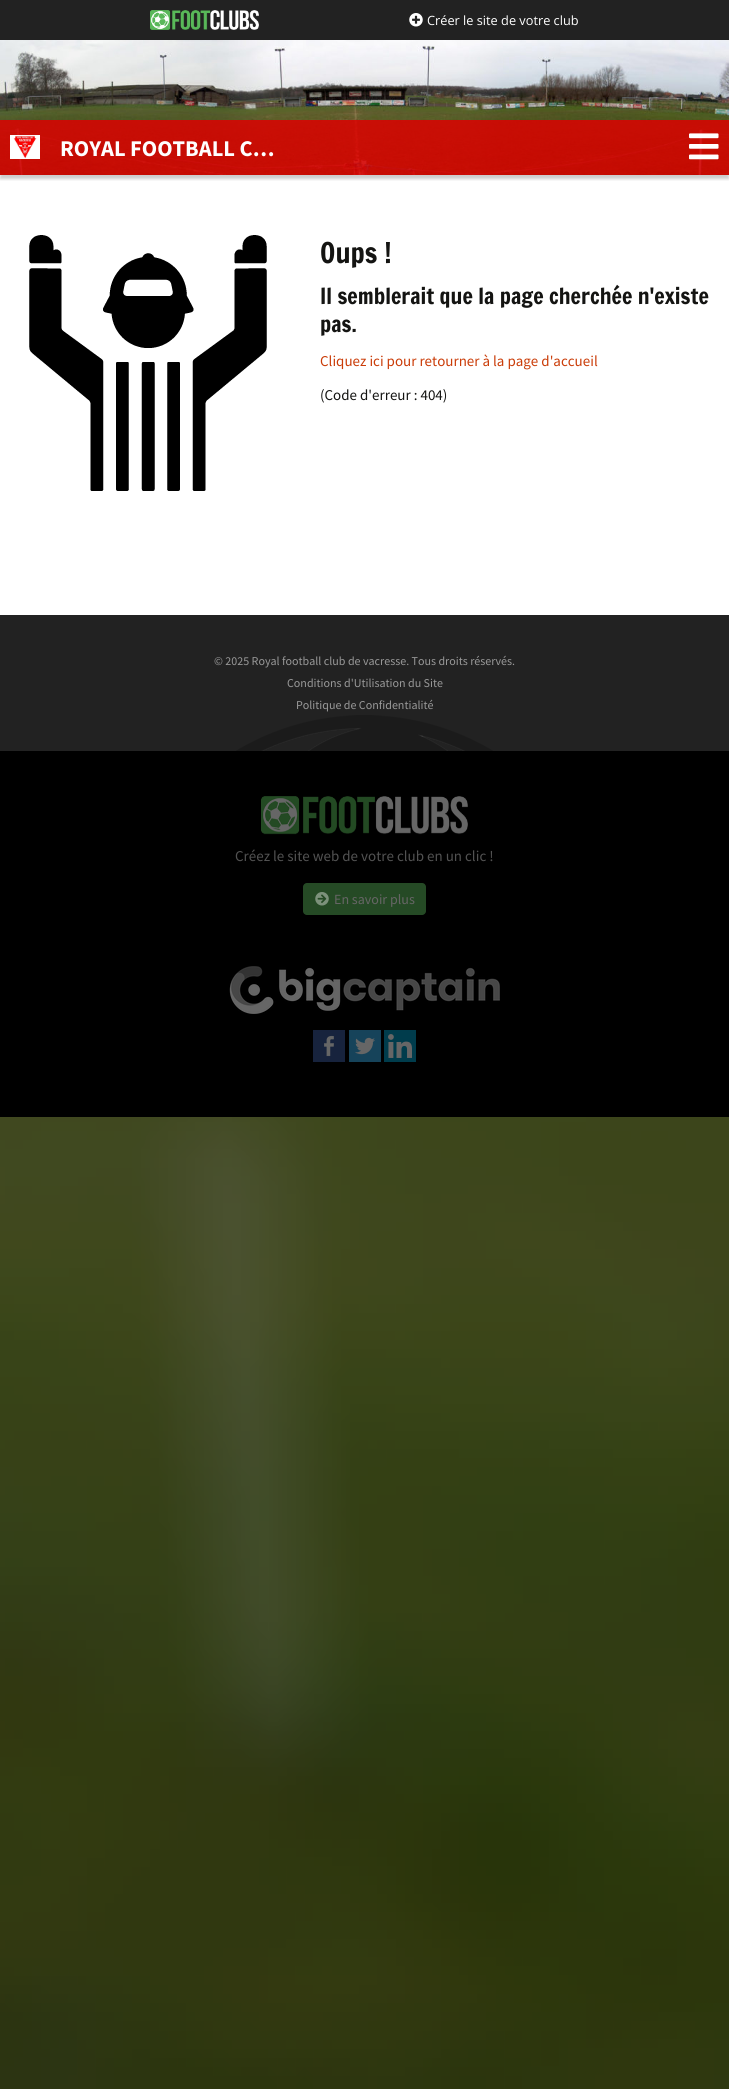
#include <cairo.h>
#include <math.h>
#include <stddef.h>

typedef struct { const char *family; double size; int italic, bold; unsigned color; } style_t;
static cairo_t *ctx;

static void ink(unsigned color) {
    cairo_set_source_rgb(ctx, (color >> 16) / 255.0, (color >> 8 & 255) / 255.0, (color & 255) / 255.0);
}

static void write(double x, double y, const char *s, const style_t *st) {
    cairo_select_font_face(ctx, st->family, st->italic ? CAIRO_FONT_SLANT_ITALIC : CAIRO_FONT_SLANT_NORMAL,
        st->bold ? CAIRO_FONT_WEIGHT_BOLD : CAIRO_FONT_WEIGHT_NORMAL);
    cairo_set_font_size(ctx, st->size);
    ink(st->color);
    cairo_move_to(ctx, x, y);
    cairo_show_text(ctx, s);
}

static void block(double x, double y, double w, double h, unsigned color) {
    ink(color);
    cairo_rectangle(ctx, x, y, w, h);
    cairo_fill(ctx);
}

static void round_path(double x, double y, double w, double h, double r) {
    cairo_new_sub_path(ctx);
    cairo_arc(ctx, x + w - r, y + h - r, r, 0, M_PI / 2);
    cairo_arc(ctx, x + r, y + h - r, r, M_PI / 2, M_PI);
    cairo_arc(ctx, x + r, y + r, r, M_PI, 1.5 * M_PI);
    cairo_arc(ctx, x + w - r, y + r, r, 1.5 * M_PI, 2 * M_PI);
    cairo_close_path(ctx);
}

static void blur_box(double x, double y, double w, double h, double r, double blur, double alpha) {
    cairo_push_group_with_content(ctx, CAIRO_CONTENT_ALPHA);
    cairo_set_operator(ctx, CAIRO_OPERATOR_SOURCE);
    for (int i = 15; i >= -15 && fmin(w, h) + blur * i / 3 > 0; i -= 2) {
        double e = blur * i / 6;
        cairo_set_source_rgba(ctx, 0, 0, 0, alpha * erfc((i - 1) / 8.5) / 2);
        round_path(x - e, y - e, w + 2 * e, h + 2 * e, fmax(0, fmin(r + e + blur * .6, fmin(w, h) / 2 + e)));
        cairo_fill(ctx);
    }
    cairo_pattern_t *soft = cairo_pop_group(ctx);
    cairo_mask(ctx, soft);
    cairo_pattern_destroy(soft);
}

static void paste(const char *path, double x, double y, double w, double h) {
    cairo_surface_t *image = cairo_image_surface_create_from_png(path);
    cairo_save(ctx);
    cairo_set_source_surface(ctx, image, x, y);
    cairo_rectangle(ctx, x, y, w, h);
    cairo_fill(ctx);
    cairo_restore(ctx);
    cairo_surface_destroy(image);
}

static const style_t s1 = {"Open Sans", 12.75, 0, 0, 0xffffff};
static const style_t s2 = {"Source Sans Pro", 22.5, 0, 1, 0xffffff};
static const style_t s3 = {"Francois One", 28, 0, 0, 0x141412};
static const style_t s4 = {"Francois One", 22, 0, 0, 0x141412};
static const style_t s5 = {"Source Sans Pro", 15, 0, 0, 0xca3c08};
static const style_t s6 = {"Source Sans Pro", 15, 0, 0, 0x141412};
static const style_t s7 = {"Source Sans Pro", 12, 0, 0, 0x999999};
static const style_t s8 = {"Source Sans Pro", 15, 0, 0, 0x525252};
static const style_t s9 = {"Source Sans Pro", 14, 0, 0, 0x666565};

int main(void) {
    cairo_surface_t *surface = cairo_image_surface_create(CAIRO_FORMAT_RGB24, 729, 2089);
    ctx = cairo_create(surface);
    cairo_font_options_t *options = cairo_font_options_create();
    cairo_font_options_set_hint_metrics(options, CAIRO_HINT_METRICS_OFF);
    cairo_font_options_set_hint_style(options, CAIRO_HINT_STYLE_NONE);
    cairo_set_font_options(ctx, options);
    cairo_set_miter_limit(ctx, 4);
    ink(0xffffff);
    cairo_paint(ctx);
    block(0, 0, 729, 40, 0x222222);
    paste("pic1.png", 150, 10, 109, 20);
    paste("pic2.png", 409, 13, 14, 14);
    write(427, 25, "Créer le site de votre club", &s1);
    paste("pic3.png", 0, 40, 729, 135);
    cairo_save(ctx);
    cairo_rectangle(ctx, 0, 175, 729, 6);
    cairo_clip(ctx);
    ink(0x000000);
    blur_box(0, 124, 729, 55, 0, 1.5, 0.2);
    cairo_restore(ctx);
    cairo_set_source_rgba(ctx, 0.867, 0, 0, 0.85);
    cairo_rectangle(ctx, 0, 120, 729, 55);
    cairo_fill(ctx);
    paste("pic4.png", 10, 135, 30, 24);
    write(60, 156, "ROYAL FOOTBALL C…", &s2);
    paste("pic5.png", 689, 133, 30, 27);
    paste("pic6.png", 29, 235, 238, 256);
    write(320, 263, "Oups !", &s3);
    write(320, 304, "Il semblerait que la page cherchée n'existe", &s4);
    write(320, 332, "pas.", &s4);
    write(320, 366, "Cliquez ici pour retourner à la page d'accueil", &s5);
    write(320, 400, "(Code d'erreur : 404)", &s6);
    block(0, 615, 729, 136, 0x222222);
    paste("pic7.png", 236, 715, 257, 36);
    write(214, 665, "© 2025 Royal football club de vacresse. Tous droits réservés.", &s7);
    write(287, 687, "Conditions d'Utilisation du Site", &s7);
    write(296, 709, "Politique de Confidentialité", &s7);
    block(0, 751, 729, 366, 0x000000);
    paste("pic8.png", 261, 796, 207, 39);
    write(235, 861, "Créez le site web de votre club en un clic !", &s8);
    ink(0x254a25);
    round_path(303, 883, 123, 32, 4);
    cairo_fill(ctx);
    paste("pic9.png", 315, 892, 14, 14);
    write(334, 904, "En savoir plus", &s9);
    paste("pic10.png", 229, 966, 271, 48);
    paste("pic11.png", 313, 1030, 32, 32);
    paste("pic12.png", 349, 1030, 32, 32);
    paste("pic13.png", 384, 1030, 32, 32);
    paste("pic14.png", 0, 1117, 729, 972);
    cairo_surface_write_to_png(surface, "screenshot.png");
    cairo_font_options_destroy(options);
    cairo_destroy(ctx);
    cairo_surface_destroy(surface);
    return 0;
}
